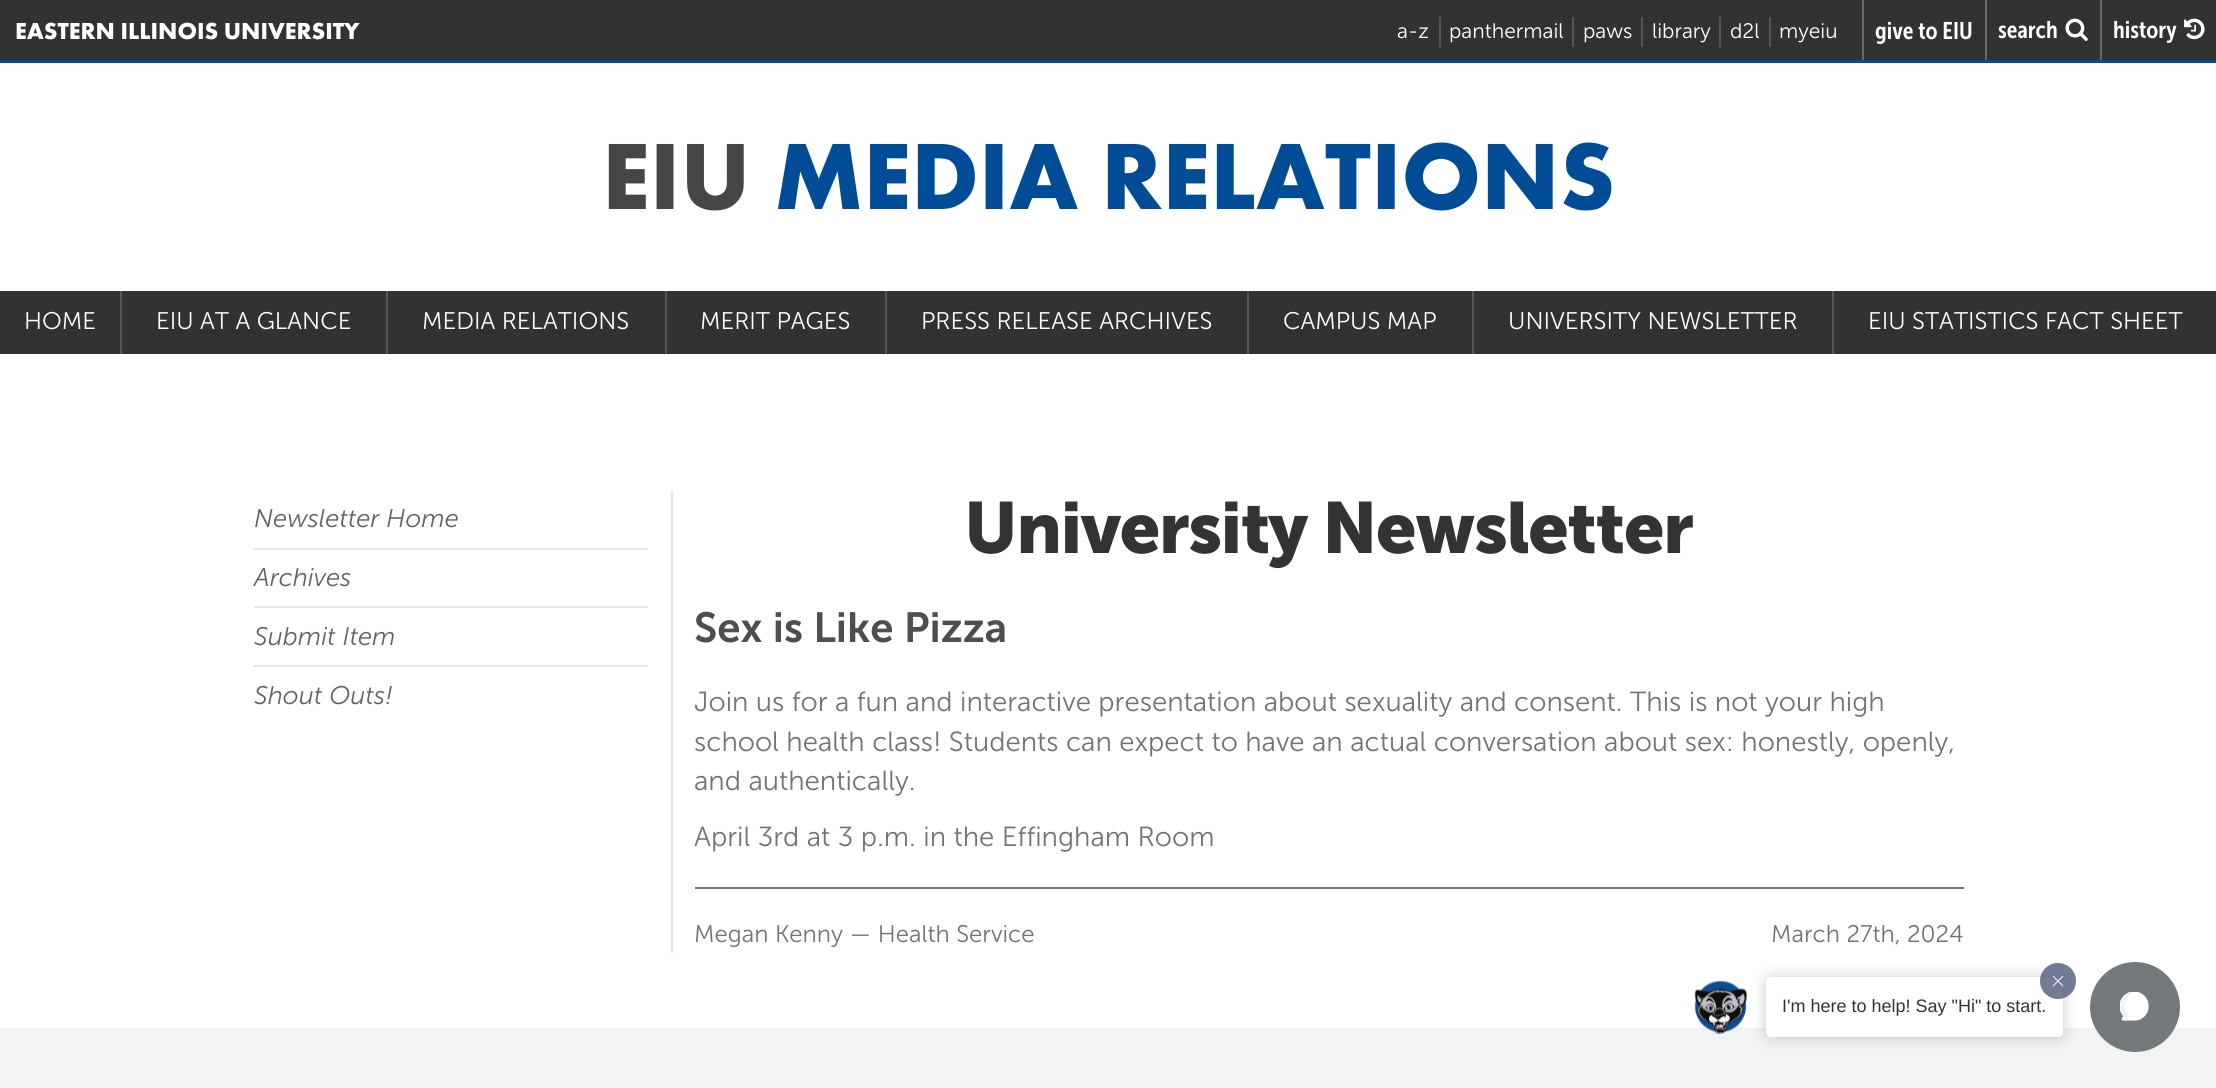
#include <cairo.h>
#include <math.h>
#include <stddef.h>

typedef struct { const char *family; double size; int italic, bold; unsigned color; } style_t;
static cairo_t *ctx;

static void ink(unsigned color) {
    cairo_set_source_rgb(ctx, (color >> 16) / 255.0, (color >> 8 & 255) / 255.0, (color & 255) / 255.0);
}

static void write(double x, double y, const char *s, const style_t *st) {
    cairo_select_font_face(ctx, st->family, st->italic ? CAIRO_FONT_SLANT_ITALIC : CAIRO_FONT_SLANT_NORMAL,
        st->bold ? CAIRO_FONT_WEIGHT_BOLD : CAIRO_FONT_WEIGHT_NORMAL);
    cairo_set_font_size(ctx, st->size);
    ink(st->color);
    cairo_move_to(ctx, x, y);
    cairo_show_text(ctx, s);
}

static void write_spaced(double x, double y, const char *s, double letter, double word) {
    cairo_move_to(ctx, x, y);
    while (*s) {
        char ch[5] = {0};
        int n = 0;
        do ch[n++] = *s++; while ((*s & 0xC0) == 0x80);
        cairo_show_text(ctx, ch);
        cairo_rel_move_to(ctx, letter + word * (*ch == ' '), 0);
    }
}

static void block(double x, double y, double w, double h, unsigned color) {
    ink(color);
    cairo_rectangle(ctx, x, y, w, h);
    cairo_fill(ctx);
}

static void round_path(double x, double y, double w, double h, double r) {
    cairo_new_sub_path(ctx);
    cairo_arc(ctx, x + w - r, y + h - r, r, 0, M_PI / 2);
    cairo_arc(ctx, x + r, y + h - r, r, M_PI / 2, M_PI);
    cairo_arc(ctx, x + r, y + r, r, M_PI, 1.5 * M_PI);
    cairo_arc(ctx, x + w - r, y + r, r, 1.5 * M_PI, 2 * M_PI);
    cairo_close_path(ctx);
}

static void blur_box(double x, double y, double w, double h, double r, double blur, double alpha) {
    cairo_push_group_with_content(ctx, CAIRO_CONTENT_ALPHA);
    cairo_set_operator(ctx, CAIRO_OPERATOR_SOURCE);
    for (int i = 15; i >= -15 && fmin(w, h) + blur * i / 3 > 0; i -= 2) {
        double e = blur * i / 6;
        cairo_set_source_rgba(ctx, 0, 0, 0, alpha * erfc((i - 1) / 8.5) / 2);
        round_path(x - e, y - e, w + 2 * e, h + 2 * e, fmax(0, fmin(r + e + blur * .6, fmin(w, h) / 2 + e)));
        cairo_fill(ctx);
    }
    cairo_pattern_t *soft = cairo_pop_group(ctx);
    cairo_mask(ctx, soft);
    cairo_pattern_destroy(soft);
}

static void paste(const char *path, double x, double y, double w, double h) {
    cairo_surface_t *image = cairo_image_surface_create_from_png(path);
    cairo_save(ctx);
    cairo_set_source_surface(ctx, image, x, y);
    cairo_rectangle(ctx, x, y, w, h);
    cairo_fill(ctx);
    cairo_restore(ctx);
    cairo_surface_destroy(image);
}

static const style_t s1 = {"Futura PT", 24, 0, 1, 0xffffff};
static const style_t s2 = {"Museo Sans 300 Light", 21, 0, 0, 0xffffff};
static const style_t s3 = {"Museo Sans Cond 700 SemiBold", 24, 0, 0, 0xffffff};
static const style_t s4 = {"Futura PT", 97.5, 0, 1, 0x464646};
static const style_t s5 = {"Futura PT", 97.5, 0, 1, 0x004c97};
static const style_t s6 = {"Museo Sans 300 Light", 24, 0, 0, 0xffffff};
static const style_t s7 = {"Museo Sans 300 Light", 25.5, 1, 0, 0x636363};
static const style_t s8 = {"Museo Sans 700 SemiBold", 42, 0, 0, 0x4e4e4e};
static const style_t s9 = {"Museo Sans 300 Light", 27.6, 0, 0, 0x737373};
static const style_t s10 = {"Museo Sans 300 Light", 24, 0, 0, 0x737373};
static const style_t s11 = {"Liberation Sans", 18, 0, 0, 0x333333};

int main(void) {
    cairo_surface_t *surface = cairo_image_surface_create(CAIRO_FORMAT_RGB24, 2216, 1088);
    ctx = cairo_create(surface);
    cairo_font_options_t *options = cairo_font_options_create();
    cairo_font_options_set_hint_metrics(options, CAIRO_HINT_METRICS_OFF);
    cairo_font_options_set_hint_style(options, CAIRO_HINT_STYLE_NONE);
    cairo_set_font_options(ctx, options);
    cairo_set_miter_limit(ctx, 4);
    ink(0xffffff);
    cairo_paint(ctx);
    block(0, 60, 2216, 3, 0x004c97);
    block(0, 0, 1862, 60, 0x323232);
    write(15, 39, "EASTERN ILLINOIS UNIVERSITY", &s1);
    write(1397, 38, "a-z", &s2);
    block(1439, 17, 2, 30, 0x555555);
    write(1449, 38, "panthermail", &s2);
    block(1572, 17, 2, 30, 0x555555);
    write(1583, 38, "paws", &s2);
    block(1641, 17, 2, 30, 0x555555);
    write(1652, 38, "library", &s2);
    block(1719, 17, 2, 30, 0x555555);
    write(1730, 38, "d2l", &s2);
    block(1769, 17, 2, 30, 0x555555);
    write(1779, 38, "myeiu", &s2);
    block(1864, 0, 121, 60, 0x323232);
    block(1862, 0, 2, 60, 0x636a6d);
    write(1875, 39, "give to EIU", &s3);
    block(1987, 0, 113, 60, 0x323232);
    block(1985, 0, 2, 60, 0x636a6d);
    write(1998, 38, "search", &s3);
    paste("pic1.png", 2065, 18, 23, 23);
    block(2102, 0, 114, 60, 0x323232);
    block(2100, 0, 2, 60, 0x636a6d);
    write(2113, 38, "history", &s3);
    paste("pic2.png", 2184, 18, 21, 22);
    write(602, 209, "EIU", &s4);
    write(774, 209, "MEDIA RELATIONS", &s5);
    block(0, 291, 120, 63, 0x323232);
    write(24, 329, "HOME", &s6);
    block(122, 291, 264, 63, 0x323232);
    block(120, 291, 2, 63, 0x555555);
    write(156, 329, "EIU AT A GLANCE", &s6);
    block(388, 291, 277, 63, 0x323232);
    block(386, 291, 2, 63, 0x555555);
    write(422, 329, "MEDIA RELATIONS", &s6);
    block(667, 291, 218, 63, 0x323232);
    block(665, 291, 2, 63, 0x555555);
    write(700, 329, "MERIT PAGES", &s6);
    block(887, 291, 360, 63, 0x323232);
    block(885, 291, 2, 63, 0x555555);
    write(921, 329, "PRESS RELEASE ARCHIVES", &s6);
    block(1249, 291, 223, 63, 0x323232);
    block(1247, 291, 2, 63, 0x555555);
    write(1283, 329, "CAMPUS MAP", &s6);
    block(1474, 291, 358, 63, 0x323232);
    block(1472, 291, 2, 63, 0x555555);
    write(1508, 329, "UNIVERSITY NEWSLETTER", &s6);
    block(1834, 291, 382, 63, 0x323232);
    block(1832, 291, 2, 63, 0x555555);
    write(1868, 329, "EIU STATISTICS FACT SHEET", &s6);
    block(254, 548, 394, 2, 0xe6e6e6);
    write(254, 527, "Newsletter Home", &s7);
    block(254, 606, 394, 2, 0xe6e6e6);
    write(254, 586, "Archives", &s7);
    block(254, 665, 394, 2, 0xe6e6e6);
    write(254, 645, "Submit Item", &s7);
    write(254, 704, "Shout Outs!", &s7);
    block(671, 491, 2, 462, 0xe6e6e6);
    cairo_select_font_face(ctx, "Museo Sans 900", CAIRO_FONT_SLANT_NORMAL, CAIRO_FONT_WEIGHT_BOLD);
    cairo_set_font_size(ctx, 72);
    ink(0x333333);
    write_spaced(964, 553, "University Newsletter", -1.5, 0);
    write(694, 642, "Sex is Like Pizza", &s8);
    write(694, 711, "Join us for a fun and interactive presentation about sexuality and consent. This is not your high", &s9);
    write(694, 751, "school health class! Students can expect to have an actual conversation about sex: honestly, openly,", &s9);
    write(694, 790, "and authentically.", &s9);
    write(694, 846, "April 3rd at 3 p.m. in the Effingham Room", &s9);
    block(695, 887, 1269, 2, 0x737373);
    write(694, 942, "Megan Kenny — Health Service", &s10);
    write(1771, 942, "March 27th, 2024", &s10);
    block(0, 1028, 2216, 60, 0xf2f4f4);
    paste("pic3.png", 1694, 980, 53, 55);
    ink(0x000000);
    blur_box(1766, 977, 297, 60, 5, 7.5, 0.2);
    ink(0xffffff);
    round_path(1767, 978, 295, 58, 4);
    cairo_fill_preserve(ctx);
    cairo_stroke(ctx);
    write(1782, 1012, "I'm here to help! Say \"Hi\" to start.", &s11);
    cairo_set_source_rgba(ctx, 0.306, 0.365, 0.467, 0.8);
    cairo_new_path(ctx);
    cairo_arc(ctx, 2058, 981, 18, 0, 2 * M_PI);
    cairo_fill(ctx);
    paste("pic4.png", 2052, 975, 12, 12);
    ink(0x75787b);
    cairo_arc(ctx, 2135, 1007, 45, 0, 2 * M_PI);
    cairo_fill(ctx);
    paste("pic5.png", 2120, 992, 29, 29);
    cairo_surface_write_to_png(surface, "screenshot.png");
    cairo_font_options_destroy(options);
    cairo_destroy(ctx);
    cairo_surface_destroy(surface);
    return 0;
}
